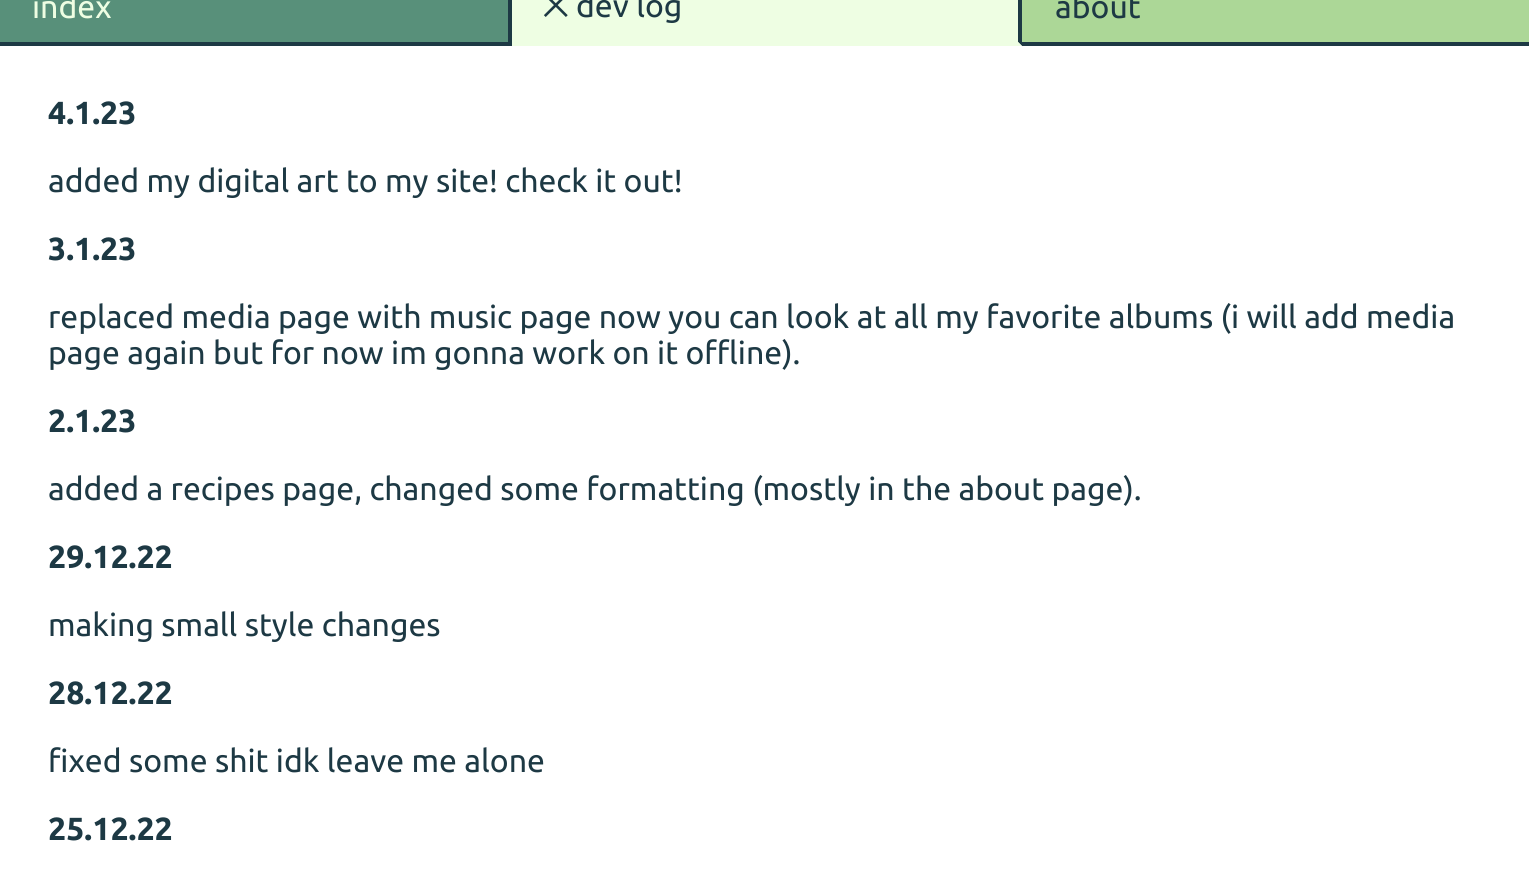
#include <cairo.h>
#include <math.h>
#include <stddef.h>

typedef struct { const char *family; double size; int italic, bold; unsigned color; } style_t;
static cairo_t *ctx;

static void ink(unsigned color) {
    cairo_set_source_rgb(ctx, (color >> 16) / 255.0, (color >> 8 & 255) / 255.0, (color & 255) / 255.0);
}

static void write(double x, double y, const char *s, const style_t *st) {
    cairo_select_font_face(ctx, st->family, st->italic ? CAIRO_FONT_SLANT_ITALIC : CAIRO_FONT_SLANT_NORMAL,
        st->bold ? CAIRO_FONT_WEIGHT_BOLD : CAIRO_FONT_WEIGHT_NORMAL);
    cairo_set_font_size(ctx, st->size);
    ink(st->color);
    cairo_move_to(ctx, x, y);
    cairo_show_text(ctx, s);
}

static void block(double x, double y, double w, double h, unsigned color) {
    ink(color);
    cairo_rectangle(ctx, x, y, w, h);
    cairo_fill(ctx);
}

static const style_t s1 = {"Ubuntu", 32, 0, 0, 0xeefee3};
static const style_t s2 = {"FreeSans", 32, 0, 0, 0x1d3944};
static const style_t s3 = {"Ubuntu", 32, 0, 0, 0x1d3944};
static const style_t s4 = {"Ubuntu", 32, 0, 1, 0x1d3944};

int main(void) {
    cairo_surface_t *surface = cairo_image_surface_create(CAIRO_FORMAT_RGB24, 1529, 882);
    ctx = cairo_create(surface);
    cairo_font_options_t *options = cairo_font_options_create();
    cairo_font_options_set_hint_metrics(options, CAIRO_HINT_METRICS_OFF);
    cairo_font_options_set_hint_style(options, CAIRO_HINT_STYLE_NONE);
    cairo_set_font_options(ctx, options);
    cairo_set_miter_limit(ctx, 4);
    ink(0xffffff);
    cairo_paint(ctx);
    block(0, 0, 508, 42, 0x58907a);
    block(508, 0, 4, 46, 0x1d3944);
    block(0, 42, 512, 4, 0x1d3944);
    write(32, 18, "index", &s1);
    block(512, 0, 510, 46, 0xeefee3);
    ink(0x1d3944);
    cairo_new_path(ctx);
    cairo_move_to(ctx, 1022, -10);
    cairo_curve_to(ctx, 1022, -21, 1013, -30, 1002, -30);
    cairo_curve_to(ctx, 1011, -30, 1018, -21, 1018, -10);
    cairo_line_to(ctx, 1018, 42);
    cairo_line_to(ctx, 1022, 46);
    cairo_close_path(ctx);
    cairo_fill(ctx);
    ink(0xeefee3);
    cairo_new_path(ctx);
    cairo_move_to(ctx, 1022, 46);
    cairo_line_to(ctx, 1018, 42);
    cairo_line_to(ctx, 512, 42);
    cairo_line_to(ctx, 512, 46);
    cairo_close_path(ctx);
    cairo_fill(ctx);
    write(543, 17, "⨉", &s2);
    write(576, 17, "dev log", &s3);
    block(1022, 0, 507, 42, 0xacd797);
    block(1022, 42, 507, 4, 0x1d3944);
    write(1055, 18, "about", &s3);
    write(48, 124, "4.1.23", &s4);
    write(48, 192, "added my digital art to my site! check it out!", &s3);
    write(48, 260, "3.1.23", &s4);
    write(48, 328, "replaced media page with music page now you can look at all my favorite albums (i will add media", &s3);
    write(48, 364, "page again but for now im gonna work on it offline).", &s3);
    write(48, 432, "2.1.23", &s4);
    write(48, 500, "added a recipes page, changed some formatting (mostly in the about page).", &s3);
    write(48, 568, "29.12.22", &s4);
    write(48, 636, "making small style changes", &s3);
    write(48, 704, "28.12.22", &s4);
    write(48, 772, "fixed some shit idk leave me alone", &s3);
    write(48, 840, "25.12.22", &s4);
    cairo_surface_write_to_png(surface, "screenshot.png");
    cairo_font_options_destroy(options);
    cairo_destroy(ctx);
    cairo_surface_destroy(surface);
    return 0;
}
